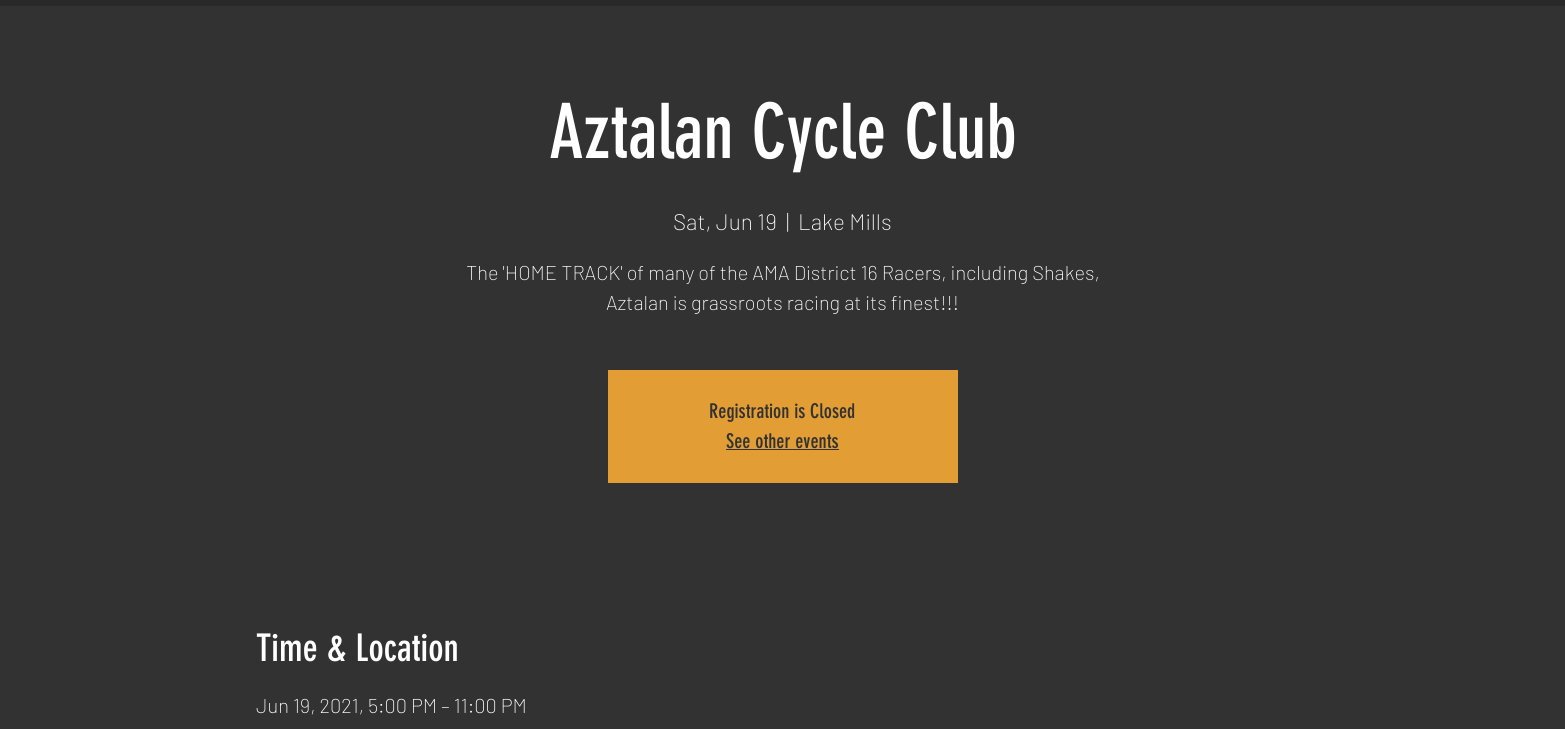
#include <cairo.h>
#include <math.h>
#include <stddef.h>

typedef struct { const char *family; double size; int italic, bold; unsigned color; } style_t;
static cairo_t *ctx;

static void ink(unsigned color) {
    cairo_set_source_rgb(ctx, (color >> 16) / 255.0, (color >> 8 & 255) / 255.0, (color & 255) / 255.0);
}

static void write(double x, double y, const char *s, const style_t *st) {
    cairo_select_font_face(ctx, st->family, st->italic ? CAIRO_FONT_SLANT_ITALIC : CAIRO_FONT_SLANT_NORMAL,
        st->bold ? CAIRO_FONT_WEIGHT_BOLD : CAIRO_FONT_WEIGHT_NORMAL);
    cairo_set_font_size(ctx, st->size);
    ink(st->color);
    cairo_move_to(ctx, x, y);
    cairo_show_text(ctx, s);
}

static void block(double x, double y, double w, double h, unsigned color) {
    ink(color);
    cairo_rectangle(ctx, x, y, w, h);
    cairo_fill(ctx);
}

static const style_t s1 = {"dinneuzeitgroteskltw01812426", 75, 0, 0, 0xffffff};
static const style_t s2 = {"Barlow ExtraLight", 22.5, 0, 0, 0xffffff};
static const style_t s3 = {"Barlow ExtraLight", 20, 0, 0, 0xffffff};
static const style_t s4 = {"dinneuzeitgroteskltw01812426", 20, 0, 0, 0x323232};
static const style_t s5 = {"dinneuzeitgroteskltw01812426", 37.5, 0, 0, 0xffffff};

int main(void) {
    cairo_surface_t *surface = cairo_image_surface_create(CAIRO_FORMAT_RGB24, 1565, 729);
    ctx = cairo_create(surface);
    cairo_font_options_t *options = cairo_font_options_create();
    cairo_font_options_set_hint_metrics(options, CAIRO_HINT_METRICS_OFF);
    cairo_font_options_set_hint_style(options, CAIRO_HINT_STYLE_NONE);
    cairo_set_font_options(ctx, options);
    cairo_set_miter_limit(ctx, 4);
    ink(0x323232);
    cairo_paint(ctx);
    block(0, 0, 1565, 6, 0x292929);
    write(549, 158, "Aztalan Cycle Club", &s1);
    write(673, 230, "Sat, Jun 19", &s2);
    write(786, 230, "|", &s2);
    write(798, 230, "Lake Mills", &s2);
    write(466, 280, "The 'HOME TRACK' of many of the AMA District 16 Racers, including Shakes,", &s3);
    write(606, 310, "Aztalan is grassroots racing at its finest!!!", &s3);
    block(608, 370, 350, 113, 0xe29d34);
    write(709, 418, "Registration is Closed", &s4);
    write(726, 448, "See other events", &s4);
    block(726, 449, 113, 1, 0x323232);
    write(256, 661, "Time & Location", &s5);
    write(256, 713, "Jun 19, 2021, 5:00 PM – 11:00 PM", &s3);
    cairo_surface_write_to_png(surface, "screenshot.png");
    cairo_font_options_destroy(options);
    cairo_destroy(ctx);
    cairo_surface_destroy(surface);
    return 0;
}
